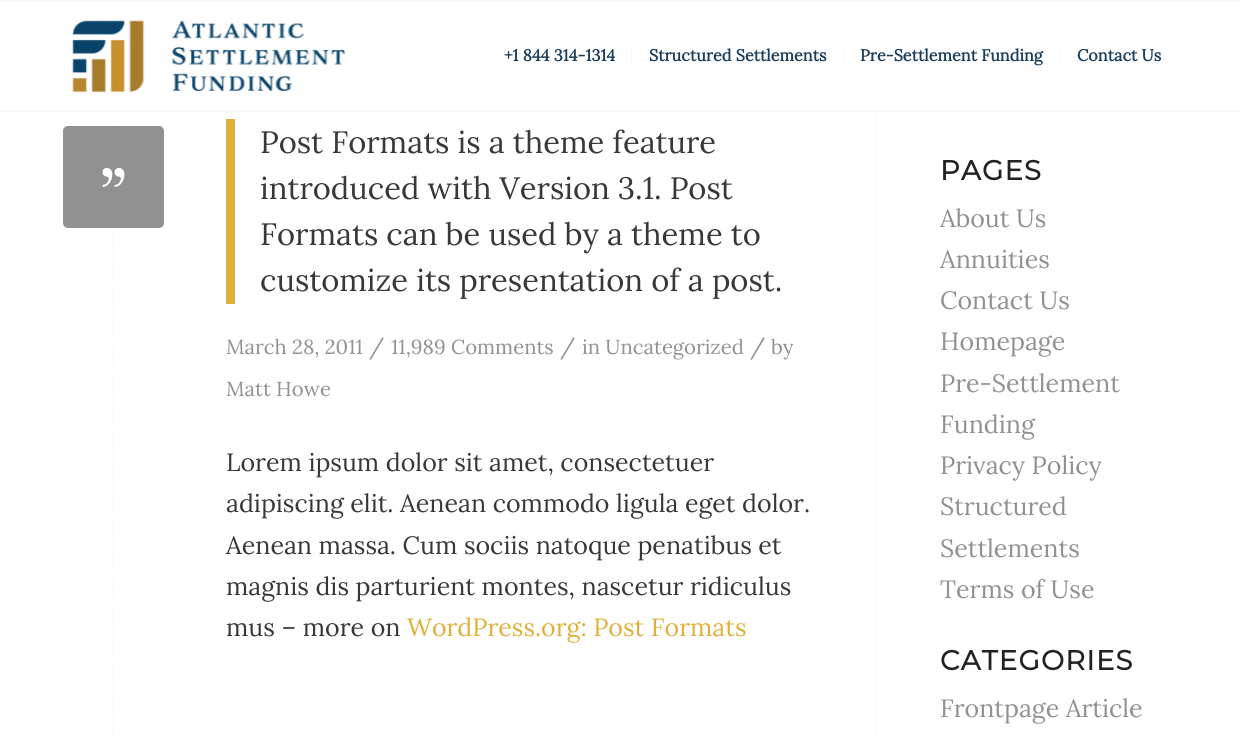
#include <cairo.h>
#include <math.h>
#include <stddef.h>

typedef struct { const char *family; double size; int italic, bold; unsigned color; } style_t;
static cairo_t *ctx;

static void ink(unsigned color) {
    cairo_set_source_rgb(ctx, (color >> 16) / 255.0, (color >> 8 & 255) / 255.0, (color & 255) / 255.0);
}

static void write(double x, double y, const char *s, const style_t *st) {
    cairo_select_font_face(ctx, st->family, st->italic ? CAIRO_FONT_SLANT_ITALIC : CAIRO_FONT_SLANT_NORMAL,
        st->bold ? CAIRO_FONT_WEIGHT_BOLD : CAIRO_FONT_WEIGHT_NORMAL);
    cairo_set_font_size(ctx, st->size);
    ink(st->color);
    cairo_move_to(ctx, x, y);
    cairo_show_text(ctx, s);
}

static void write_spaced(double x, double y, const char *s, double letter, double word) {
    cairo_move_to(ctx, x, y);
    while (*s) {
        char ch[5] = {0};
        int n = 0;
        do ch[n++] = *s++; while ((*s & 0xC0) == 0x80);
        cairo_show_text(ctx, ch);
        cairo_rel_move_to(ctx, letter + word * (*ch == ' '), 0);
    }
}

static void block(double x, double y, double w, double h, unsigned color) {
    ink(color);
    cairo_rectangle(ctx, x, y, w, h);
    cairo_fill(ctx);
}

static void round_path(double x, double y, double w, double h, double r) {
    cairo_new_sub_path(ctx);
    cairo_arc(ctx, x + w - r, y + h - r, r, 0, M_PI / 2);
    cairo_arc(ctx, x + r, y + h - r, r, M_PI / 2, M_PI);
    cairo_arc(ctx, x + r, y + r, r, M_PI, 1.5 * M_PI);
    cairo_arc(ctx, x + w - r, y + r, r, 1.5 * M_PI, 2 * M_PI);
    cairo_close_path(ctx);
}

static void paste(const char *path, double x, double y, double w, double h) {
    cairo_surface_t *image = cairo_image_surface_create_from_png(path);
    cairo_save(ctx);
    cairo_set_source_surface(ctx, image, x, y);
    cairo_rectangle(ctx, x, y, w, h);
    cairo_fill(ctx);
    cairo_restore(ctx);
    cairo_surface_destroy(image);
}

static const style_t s1 = {"Lora", 16.25, 0, 1, 0x1b405e};
static const style_t s2 = {"Lora", 30.9, 0, 0, 0x383838};
static const style_t s3 = {"Lora", 20.25, 0, 0, 0x919191};
static const style_t s4 = {"Lora", 22, 0, 0, 0x919191};
static const style_t s5 = {"Lora", 25, 0, 0, 0x383838};
static const style_t s6 = {"Lora", 25, 0, 0, 0xe0b13a};
static const style_t s7 = {"Lora", 25, 0, 0, 0x919191};

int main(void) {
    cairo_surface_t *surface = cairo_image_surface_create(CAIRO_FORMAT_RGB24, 1240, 739);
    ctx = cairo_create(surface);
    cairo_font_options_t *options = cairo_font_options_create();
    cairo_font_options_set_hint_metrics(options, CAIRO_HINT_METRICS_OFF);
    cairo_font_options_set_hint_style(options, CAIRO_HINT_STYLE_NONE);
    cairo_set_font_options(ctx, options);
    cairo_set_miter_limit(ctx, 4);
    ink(0xffffff);
    cairo_paint(ctx);
    block(0, 0, 1240, 1, 0xf8f8f8);
    block(0, 111, 1240, 1, 0xf8f8f8);
    paste("pic1.png", 72, 20, 274, 72);
    write(504, 61, "+1 844 314-1314", &s1);
    write(649, 61, "Structured Settlements", &s1);
    block(631, 45, 1, 21, 0xf8f8f8);
    write(860, 61, "Pre-Settlement Funding", &s1);
    block(843, 45, 1, 21, 0xf8f8f8);
    write(1077, 61, "Contact Us", &s1);
    block(1060, 45, 1, 21, 0xf8f8f8);
    block(876, 113, 1, 626, 0xf8f8f8);
    cairo_new_path(ctx);
    cairo_move_to(ctx, 113, 119);
    cairo_line_to(ctx, 113, 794);
    cairo_set_line_width(ctx, 1.2);
    cairo_set_dash(ctx, (double[]){3.75, 2.52}, 2, 0);
    cairo_stroke(ctx);
    ink(0x919191);
    round_path(63, 126, 101, 102, 5);
    cairo_fill(ctx);
    paste("pic2.png", 102, 168, 23, 19);
    block(226, 119, 9, 185, 0xe0b13a);
    write(260, 153, "Post Formats is a theme feature", &s2);
    write(260, 199, "introduced with Version 3.1. Post", &s2);
    write(260, 245, "Formats can be used by a theme to", &s2);
    write(260, 291, "customize its presentation of a post.", &s2);
    write(226, 354, "March 28, 2011", &s3);
    write(369, 354, "/", &s4);
    write(391, 354, "11,989 Comments", &s3);
    write(560, 354, "/", &s4);
    write(582, 354, "in Uncategorized", &s3);
    write(750, 354, "/", &s4);
    write(771, 354, "by", &s3);
    write(226, 396, "Matt Howe", &s3);
    write(226, 471, "Lorem ipsum dolor sit amet, consectetuer", &s5);
    write(226, 512, "adipiscing elit. Aenean commodo ligula eget dolor.", &s5);
    write(226, 554, "Aenean massa. Cum sociis natoque penatibus et", &s5);
    write(226, 595, "magnis dis parturient montes, nascetur ridiculus", &s5);
    write(226, 636, "mus – more on", &s5);
    write(407, 636, "WordPress.org: Post Formats", &s6);
    cairo_select_font_face(ctx, "Montserrat", CAIRO_FONT_SLANT_NORMAL, CAIRO_FONT_WEIGHT_BOLD);
    cairo_set_font_size(ctx, 27.5);
    ink(0x222222);
    write_spaced(940, 180, "PAGES", 1.25, 0);
    write(940, 227, "About Us", &s7);
    write(940, 268, "Annuities", &s7);
    write(940, 309, "Contact Us", &s7);
    write(940, 350, "Homepage", &s7);
    write(940, 392, "Pre-Settlement", &s7);
    write(940, 433, "Funding", &s7);
    write(940, 474, "Privacy Policy", &s7);
    write(940, 515, "Structured", &s7);
    write(940, 557, "Settlements", &s7);
    write(940, 598, "Terms of Use", &s7);
    cairo_select_font_face(ctx, "Montserrat", CAIRO_FONT_SLANT_NORMAL, CAIRO_FONT_WEIGHT_BOLD);
    cairo_set_font_size(ctx, 27.5);
    ink(0x222222);
    write_spaced(940, 670, "CATEGORIES", 1.25, 0);
    write(940, 717, "Frontpage Article", &s7);
    cairo_surface_write_to_png(surface, "screenshot.png");
    cairo_font_options_destroy(options);
    cairo_destroy(ctx);
    cairo_surface_destroy(surface);
    return 0;
}
